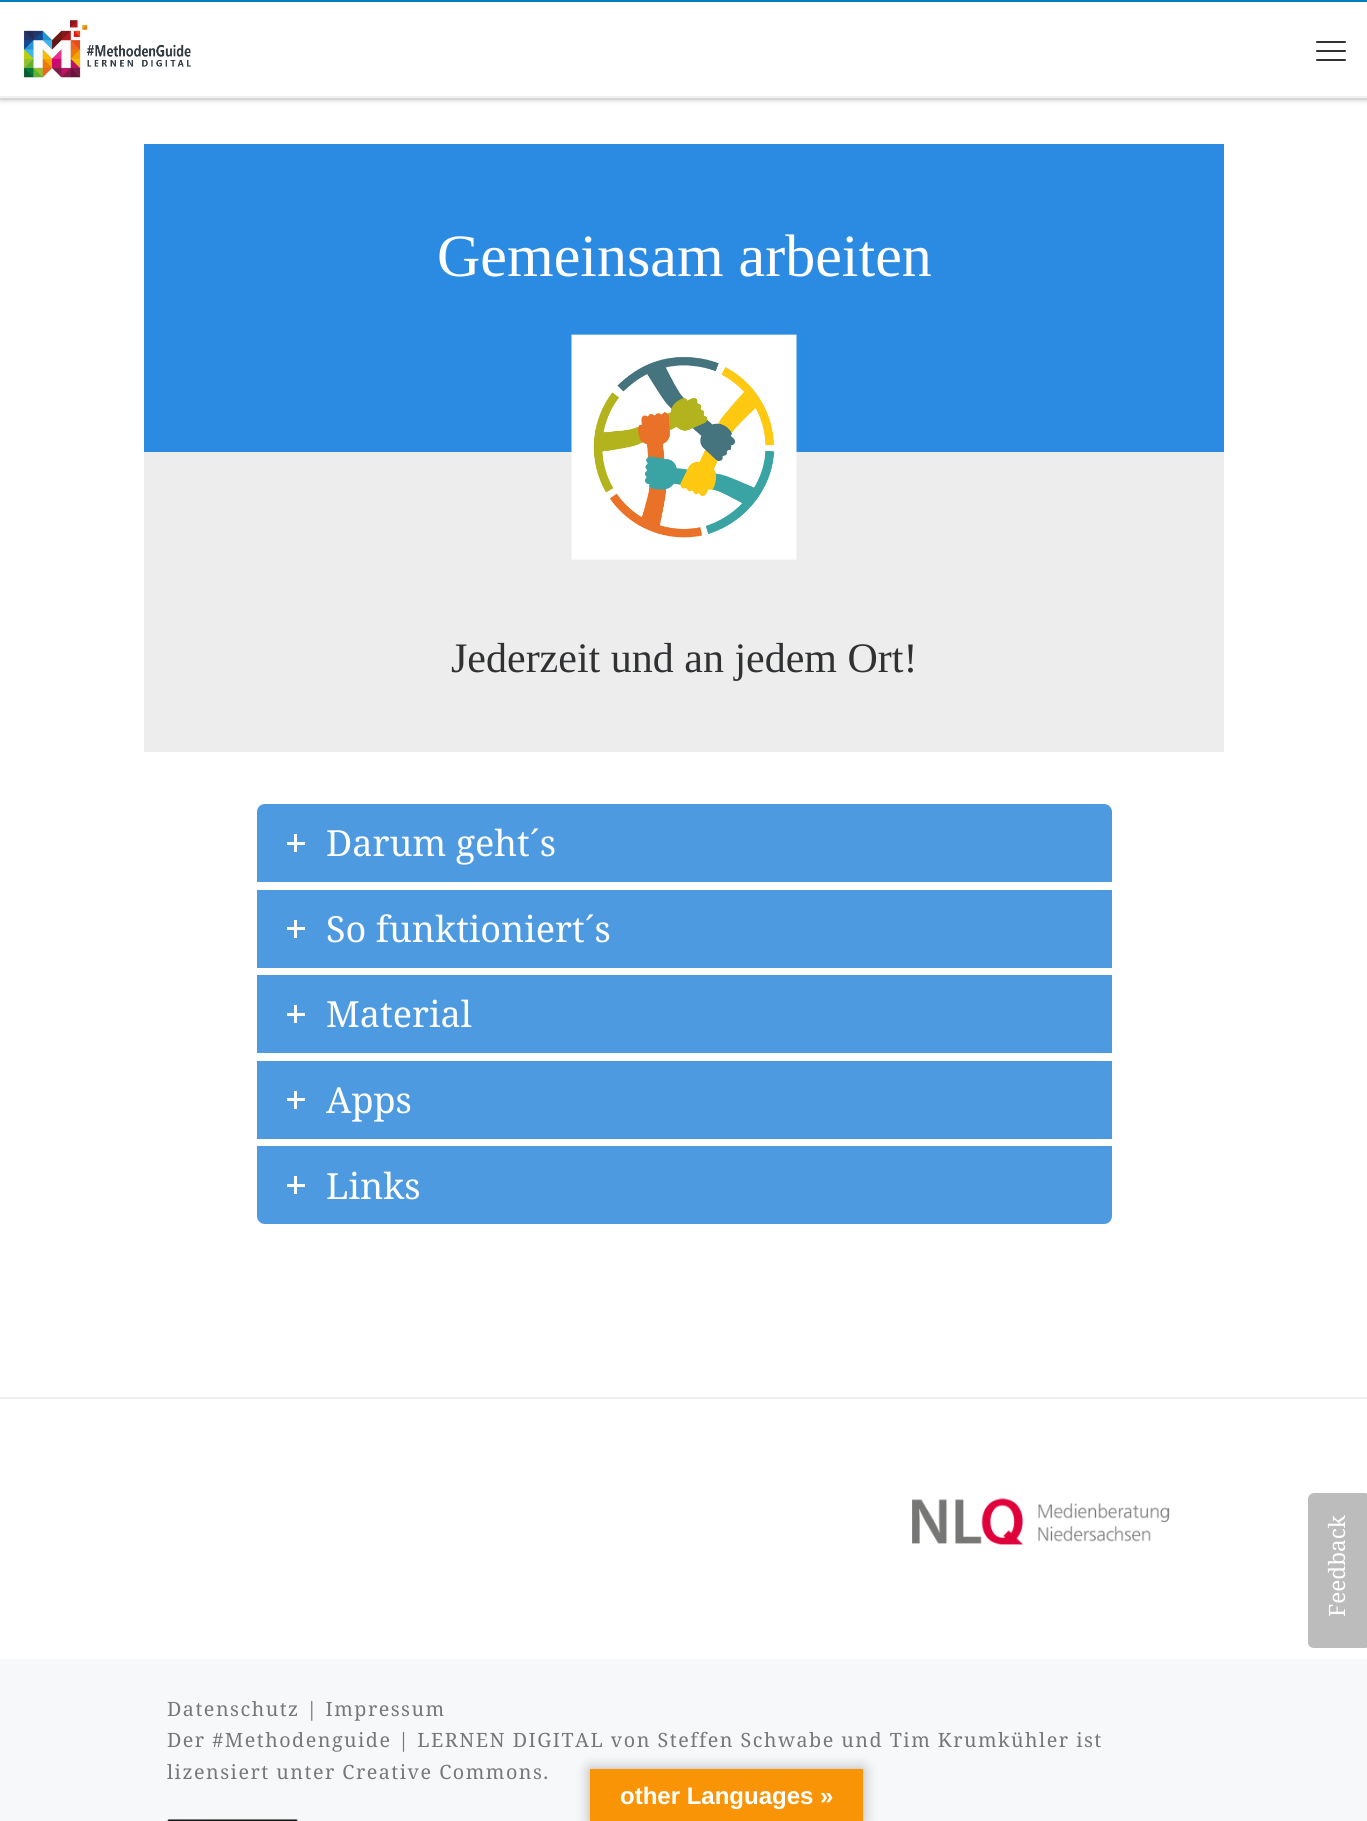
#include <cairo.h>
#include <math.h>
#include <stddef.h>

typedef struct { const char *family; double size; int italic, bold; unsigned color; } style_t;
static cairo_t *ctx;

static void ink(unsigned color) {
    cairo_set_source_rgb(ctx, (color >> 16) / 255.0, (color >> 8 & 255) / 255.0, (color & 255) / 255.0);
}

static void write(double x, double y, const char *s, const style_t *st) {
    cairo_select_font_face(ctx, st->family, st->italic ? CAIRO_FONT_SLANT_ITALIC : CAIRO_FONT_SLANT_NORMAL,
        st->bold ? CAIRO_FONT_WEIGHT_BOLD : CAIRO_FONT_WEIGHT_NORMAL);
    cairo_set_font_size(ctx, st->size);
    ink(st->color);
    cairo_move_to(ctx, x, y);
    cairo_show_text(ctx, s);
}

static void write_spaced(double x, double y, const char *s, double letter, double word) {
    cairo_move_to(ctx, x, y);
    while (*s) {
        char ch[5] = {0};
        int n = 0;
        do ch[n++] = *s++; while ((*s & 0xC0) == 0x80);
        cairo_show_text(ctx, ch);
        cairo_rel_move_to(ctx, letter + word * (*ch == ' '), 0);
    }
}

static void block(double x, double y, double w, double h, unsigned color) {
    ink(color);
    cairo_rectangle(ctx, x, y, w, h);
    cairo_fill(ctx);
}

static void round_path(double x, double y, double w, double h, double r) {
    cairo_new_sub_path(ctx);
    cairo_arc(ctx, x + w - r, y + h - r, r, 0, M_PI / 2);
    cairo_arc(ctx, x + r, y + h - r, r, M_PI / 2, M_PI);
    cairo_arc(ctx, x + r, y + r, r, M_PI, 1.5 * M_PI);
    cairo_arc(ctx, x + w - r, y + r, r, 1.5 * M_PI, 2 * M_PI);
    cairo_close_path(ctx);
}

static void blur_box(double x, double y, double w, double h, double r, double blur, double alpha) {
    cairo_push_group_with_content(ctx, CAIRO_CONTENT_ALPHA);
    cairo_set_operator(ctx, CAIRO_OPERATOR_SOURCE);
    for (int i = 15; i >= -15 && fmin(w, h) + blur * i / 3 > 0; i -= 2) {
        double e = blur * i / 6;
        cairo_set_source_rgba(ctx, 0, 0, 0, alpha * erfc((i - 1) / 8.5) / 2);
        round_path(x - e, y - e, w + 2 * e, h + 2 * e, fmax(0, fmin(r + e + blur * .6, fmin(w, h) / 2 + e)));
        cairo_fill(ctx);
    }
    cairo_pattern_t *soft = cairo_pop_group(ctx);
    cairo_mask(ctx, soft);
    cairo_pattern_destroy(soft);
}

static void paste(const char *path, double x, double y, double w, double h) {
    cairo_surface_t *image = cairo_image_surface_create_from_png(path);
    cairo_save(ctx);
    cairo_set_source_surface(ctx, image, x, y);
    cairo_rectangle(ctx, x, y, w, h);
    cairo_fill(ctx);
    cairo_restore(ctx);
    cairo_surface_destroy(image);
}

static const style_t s1 = {"Liberation Serif", 60, 0, 0, 0xffffff};
static const style_t s2 = {"Liberation Serif", 42, 0, 0, 0x303133};
static const style_t s3 = {"Noto Serif", 36, 0, 0, 0xffffff};
static const style_t s4 = {"Noto Serif", 22.5, 0, 0, 0xffffff};
static const style_t s5 = {"Liberation Sans", 24, 0, 1, 0xffffff};

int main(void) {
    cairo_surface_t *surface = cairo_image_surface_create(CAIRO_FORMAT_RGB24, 1367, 1821);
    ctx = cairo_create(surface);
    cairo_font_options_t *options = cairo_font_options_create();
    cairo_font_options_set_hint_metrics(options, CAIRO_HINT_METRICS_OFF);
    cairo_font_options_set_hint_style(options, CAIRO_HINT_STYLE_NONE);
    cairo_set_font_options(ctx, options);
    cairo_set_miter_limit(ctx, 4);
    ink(0xffffff);
    cairo_paint(ctx);
    ink(0x666666);
    blur_box(0, -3, 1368, 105, 0, 1.5, 0.08);
    block(0, 0, 1367, 2, 0x0088cc);
    cairo_set_source_rgba(ctx, 0.192, 0.192, 0.192, 0.09);
    cairo_rectangle(ctx, 0, 99, 1367, 1);
    cairo_fill(ctx);
    block(0, 98, 1367, 1, 0xefefef);
    ink(0x000000);
    blur_box(0, 2, 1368, 96, 0, 4, 0.2);
    block(0, 2, 1367, 94, 0xffffff);
    paste("pic1.png", 23, 20, 168, 58);
    ink(0x313131);
    round_path(1316, 41, 30, 2, 1);
    cairo_fill(ctx);
    round_path(1316, 50, 30, 2, 1);
    cairo_fill(ctx);
    round_path(1316, 59, 30, 2, 1);
    cairo_fill(ctx);
    block(0, 96, 1367, 2, 0xf0f0f0);
    block(144, 144, 1080, 308, 0x2b8ae2);
    write(437, 276, "Gemeinsam arbeiten", &s1);
    block(144, 452, 1080, 300, 0xededed);
    paste("pic2.png", 571, 334, 226, 226);
    write(451, 672, "Jederzeit und an jedem Ort!", &s2);
    ink(0x4d9ae1);
    cairo_new_path(ctx);
    cairo_move_to(ctx, 265, 804);
    cairo_line_to(ctx, 1104, 804);
    cairo_curve_to(ctx, 1108.5, 804, 1112, 807.5, 1112, 812);
    cairo_line_to(ctx, 1112, 882);
    cairo_line_to(ctx, 257, 882);
    cairo_line_to(ctx, 257, 812);
    cairo_curve_to(ctx, 257, 807.5, 260.5, 804, 265, 804);
    cairo_close_path(ctx);
    cairo_fill(ctx);
    block(287, 842, 18, 3, 0xffffff);
    block(294, 834, 3, 18, 0xffffff);
    write(326, 856, "Darum geht´s", &s3);
    block(257, 890, 855, 78, 0x4d9ae1);
    block(287, 927, 18, 3, 0xffffff);
    block(294, 920, 3, 18, 0xffffff);
    write(326, 942, "So funktioniert´s", &s3);
    block(257, 975, 855, 78, 0x4d9ae1);
    block(287, 1013, 18, 3, 0xffffff);
    block(294, 1005, 3, 18, 0xffffff);
    write(326, 1027, "Material", &s3);
    block(257, 1061, 855, 78, 0x4d9ae1);
    block(287, 1098, 18, 3, 0xffffff);
    block(294, 1091, 3, 18, 0xffffff);
    write(326, 1113, "Apps", &s3);
    ink(0x4d9ae1);
    cairo_new_path(ctx);
    cairo_move_to(ctx, 257, 1146);
    cairo_line_to(ctx, 1112, 1146);
    cairo_line_to(ctx, 1112, 1216);
    cairo_curve_to(ctx, 1112, 1220.5, 1108.5, 1224, 1104, 1224);
    cairo_line_to(ctx, 265, 1224);
    cairo_curve_to(ctx, 260.5, 1224, 257, 1220.5, 257, 1216);
    cairo_close_path(ctx);
    cairo_fill(ctx);
    block(287, 1184, 18, 3, 0xffffff);
    block(294, 1176, 3, 18, 0xffffff);
    write(326, 1199, "Links", &s3);
    block(0, 1397, 1367, 2, 0xeceeef);
    paste("pic3.png", 912, 1498, 258, 47);
    block(0, 1659, 1367, 162, 0xf7f8f9);
    cairo_set_font_size(ctx, 19.7);
    ink(0x777777);
    write_spaced(167, 1716, "Datenschutz | Impressum", 1.5, 0);
    write_spaced(167, 1747, "Der #Methodenguide | LERNEN DIGITAL von Steffen Schwabe und Tim Krumkühler ist", 1.5, 0);
    write_spaced(167, 1779, "lizensiert unter Creative Commons.", 1.5, 0);
    paste("pic4.png", 166, 1819, 133, 2);
    ink(0xbcbcbc);
    cairo_new_path(ctx);
    cairo_move_to(ctx, 1308, 1642);
    cairo_line_to(ctx, 1308, 1499);
    cairo_curve_to(ctx, 1308, 1496, 1311, 1493, 1314, 1493);
    cairo_line_to(ctx, 1365, 1493);
    cairo_curve_to(ctx, 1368, 1493, 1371, 1496, 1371, 1499);
    cairo_line_to(ctx, 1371, 1642);
    cairo_curve_to(ctx, 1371, 1646, 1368, 1648, 1365, 1648);
    cairo_line_to(ctx, 1314, 1648);
    cairo_curve_to(ctx, 1311, 1648, 1308, 1646, 1308, 1642);
    cairo_close_path(ctx);
    cairo_fill(ctx);
    cairo_save(ctx);
    cairo_translate(ctx, 1345, 1617);
    cairo_rotate(ctx, -90 * M_PI / 180);
    write(0, 0, "Feedback", &s4);
    cairo_restore(ctx);
    ink(0x000000);
    blur_box(590, 1769, 273, 52, 0, 7, 0.3);
    block(590, 1769, 273, 52, 0xf89406);
    write(620, 1804, "other Languages »", &s5);
    cairo_surface_write_to_png(surface, "screenshot.png");
    cairo_font_options_destroy(options);
    cairo_destroy(ctx);
    cairo_surface_destroy(surface);
    return 0;
}
